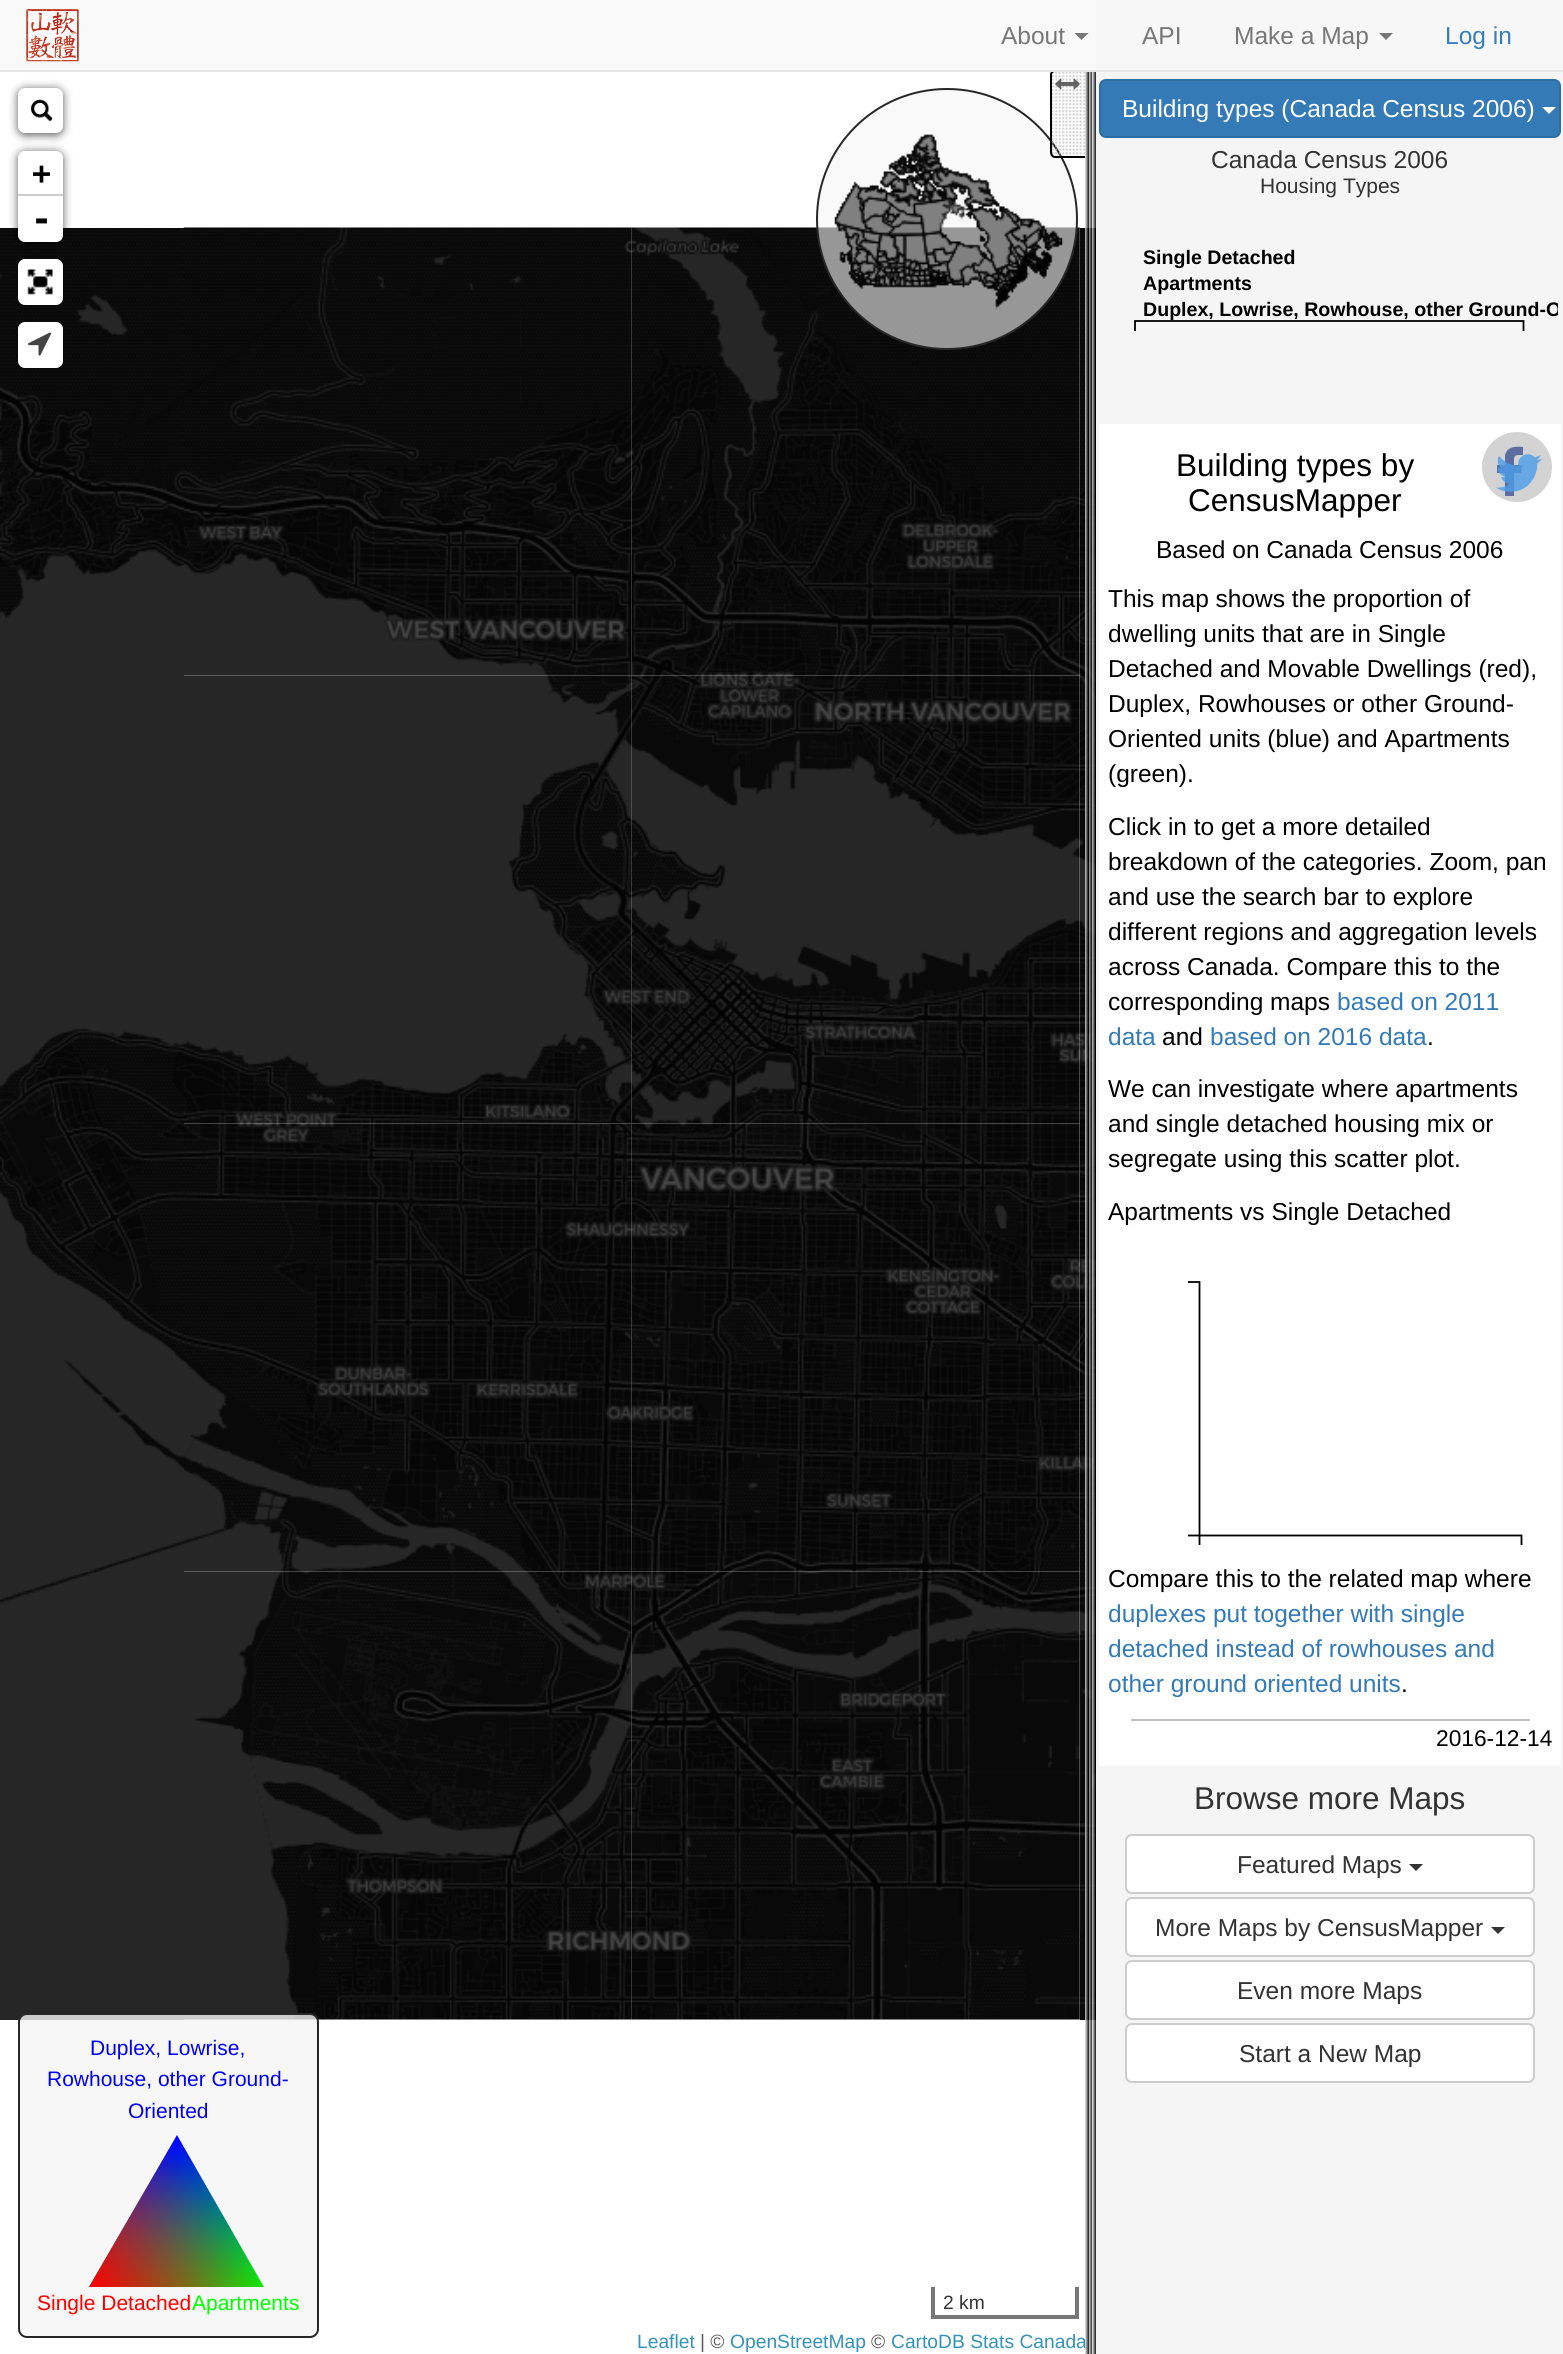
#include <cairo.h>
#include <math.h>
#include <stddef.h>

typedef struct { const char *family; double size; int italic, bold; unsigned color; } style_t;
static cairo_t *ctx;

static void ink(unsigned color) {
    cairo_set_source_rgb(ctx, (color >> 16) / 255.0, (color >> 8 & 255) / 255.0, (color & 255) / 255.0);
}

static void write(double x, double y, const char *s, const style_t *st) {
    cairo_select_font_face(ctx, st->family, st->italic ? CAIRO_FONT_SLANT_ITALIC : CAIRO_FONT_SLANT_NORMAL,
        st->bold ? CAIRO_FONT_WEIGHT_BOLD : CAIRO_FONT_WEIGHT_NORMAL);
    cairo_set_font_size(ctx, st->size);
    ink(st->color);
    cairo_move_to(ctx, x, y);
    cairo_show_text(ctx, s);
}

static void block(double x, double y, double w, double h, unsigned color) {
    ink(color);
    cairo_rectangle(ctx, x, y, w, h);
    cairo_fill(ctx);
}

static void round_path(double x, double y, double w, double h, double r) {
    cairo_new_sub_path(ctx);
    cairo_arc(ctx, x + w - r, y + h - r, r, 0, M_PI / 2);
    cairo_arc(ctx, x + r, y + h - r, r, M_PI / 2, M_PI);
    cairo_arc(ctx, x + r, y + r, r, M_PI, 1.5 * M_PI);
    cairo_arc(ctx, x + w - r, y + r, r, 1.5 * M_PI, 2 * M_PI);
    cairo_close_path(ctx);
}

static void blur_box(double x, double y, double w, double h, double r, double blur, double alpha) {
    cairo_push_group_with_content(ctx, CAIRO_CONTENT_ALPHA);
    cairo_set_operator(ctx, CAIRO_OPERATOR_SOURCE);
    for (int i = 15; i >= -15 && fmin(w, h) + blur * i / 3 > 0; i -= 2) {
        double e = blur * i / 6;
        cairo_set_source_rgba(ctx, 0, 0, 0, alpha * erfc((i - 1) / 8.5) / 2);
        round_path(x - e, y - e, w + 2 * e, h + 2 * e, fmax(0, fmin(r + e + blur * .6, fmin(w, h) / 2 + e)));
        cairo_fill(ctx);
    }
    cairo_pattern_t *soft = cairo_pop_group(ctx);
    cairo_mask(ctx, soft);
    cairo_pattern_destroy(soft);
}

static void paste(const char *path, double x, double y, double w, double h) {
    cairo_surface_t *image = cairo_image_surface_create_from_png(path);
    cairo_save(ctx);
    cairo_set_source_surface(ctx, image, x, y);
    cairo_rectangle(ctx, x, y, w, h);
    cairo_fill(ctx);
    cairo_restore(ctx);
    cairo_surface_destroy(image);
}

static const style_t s1 = {"Liberation Sans", 24.5, 0, 0, 0x777777};
static const style_t s2 = {"Liberation Sans", 24.5, 0, 0, 0x357ebd};
static const style_t s3 = {"DejaVu Sans Mono", 31.5, 0, 1, 0x000000};
static const style_t s4 = {"DejaVu Sans Mono", 35, 0, 1, 0x000000};
static const style_t s5 = {"Liberation Sans", 21, 0, 0, 0x0000ff};
static const style_t s6 = {"Liberation Sans", 21, 0, 0, 0xff0000};
static const style_t s7 = {"Liberation Sans", 21, 0, 0, 0x00ff00};
static const style_t s8 = {"Liberation Sans", 19.25, 0, 0, 0x333333};
static const style_t s9 = {"Liberation Sans", 19.25, 0, 0, 0x3393b9};
static const style_t s10 = {"Liberation Sans", 19.25, 0, 0, 0x5c5c5c};
static const style_t s11 = {"Liberation Sans", 24.5, 0, 0, 0xffffff};
static const style_t s12 = {"Liberation Sans", 24.5, 0, 0, 0x333333};
static const style_t s13 = {"Liberation Sans", 21, 0, 0, 0x333333};
static const style_t s14 = {"Liberation Sans", 19.6, 0, 1, 0x000000};
static const style_t s15 = {"Liberation Sans", 31.5, 0, 0, 0x000000};
static const style_t s16 = {"Liberation Sans", 24.5, 0, 0, 0x000000};
static const style_t s17 = {"Liberation Sans", 24.5, 0, 0, 0x337ab7};
static const style_t s18 = {"Liberation Sans", 22.75, 0, 0, 0x000000};
static const style_t s19 = {"Liberation Sans", 31.5, 0, 0, 0x333333};

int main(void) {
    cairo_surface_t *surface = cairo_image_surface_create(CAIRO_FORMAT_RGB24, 1563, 2354);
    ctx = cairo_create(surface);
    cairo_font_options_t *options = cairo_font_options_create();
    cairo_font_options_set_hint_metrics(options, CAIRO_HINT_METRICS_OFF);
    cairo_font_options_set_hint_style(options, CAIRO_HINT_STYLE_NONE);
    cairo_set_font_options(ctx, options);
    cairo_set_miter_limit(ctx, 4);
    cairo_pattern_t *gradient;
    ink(0xffffff);
    cairo_paint(ctx);
    block(0, 0, 1096, 70, 0xf9f9f9);
    paste("pic11.png", 184, 675, 448, 449);
    paste("pic12.png", 631, 675, 449, 449);
    paste("pic7.png", 183, 227, 449, 449);
    paste("pic8.png", 631, 227, 449, 449);
    cairo_set_source_rgba(ctx, 0.961, 0.961, 0.961, 0.6);
    cairo_arc(ctx, 947, 219, 130, 0, 2 * M_PI);
    cairo_fill_preserve(ctx);
    ink(0x272727);
    cairo_stroke(ctx);
    paste("pic5.png", 834, 134, 229, 175);
    paste("pic22.png", 1050, 72, 35, 86);
    ink(0x000000);
    cairo_set_fill_rule(ctx, CAIRO_FILL_RULE_EVEN_ODD);
    cairo_new_path(ctx);
    cairo_move_to(ctx, 1055, 70);
    cairo_line_to(ctx, 1085, 70);
    cairo_line_to(ctx, 1085, 158);
    cairo_line_to(ctx, 1055, 158);
    cairo_curve_to(ctx, 1052, 158, 1050, 155, 1050, 152);
    cairo_line_to(ctx, 1050, 75);
    cairo_curve_to(ctx, 1050, 72, 1052, 70, 1055, 70);
    cairo_close_path(ctx);
    cairo_move_to(ctx, 1055, 72);
    cairo_line_to(ctx, 1085, 72);
    cairo_line_to(ctx, 1085, 156);
    cairo_line_to(ctx, 1055, 156);
    cairo_curve_to(ctx, 1053, 156, 1052, 154, 1052, 152);
    cairo_line_to(ctx, 1052, 75);
    cairo_curve_to(ctx, 1052, 73, 1053, 72, 1055, 72);
    cairo_close_path(ctx);
    cairo_fill(ctx);
    block(0, 70, 1563, 2, 0xe7e7e7);
    paste("pic1.png", 26, 9, 53, 53);
    write(1001, 44, "About", &s1);
    cairo_set_fill_rule(ctx, CAIRO_FILL_RULE_WINDING);
    cairo_new_path(ctx);
    cairo_move_to(ctx, 1074.5, 33);
    cairo_line_to(ctx, 1088.5, 33);
    cairo_line_to(ctx, 1081.5, 40);
    cairo_close_path(ctx);
    cairo_fill(ctx);
    block(1096, 0, 467, 70, 0xf7f7f7);
    write(1142, 44, "API", &s1);
    write(1234, 44, "Make a Map", &s1);
    cairo_new_path(ctx);
    cairo_move_to(ctx, 1379, 33);
    cairo_line_to(ctx, 1393, 33);
    cairo_line_to(ctx, 1386, 40);
    cairo_close_path(ctx);
    cairo_fill(ctx);
    write(1445, 44, "Log in", &s2);
    ink(0x000000);
    blur_box(18, 89, 45, 46, 7, 4.5, 0.65);
    ink(0xffffff);
    round_path(18, 88, 45, 45, 7);
    cairo_fill(ctx);
    paste("pic2.png", 30, 99, 23, 23);
    paste("pic6.png", 0, 228, 184, 448);
    ink(0x000000);
    blur_box(18, 152, 45, 91, 7, 4.5, 0.65);
    ink(0xffffff);
    cairo_new_path(ctx);
    cairo_move_to(ctx, 25, 151);
    cairo_line_to(ctx, 56, 151);
    cairo_curve_to(ctx, 60, 151, 63, 154, 63, 158);
    cairo_line_to(ctx, 63, 196);
    cairo_line_to(ctx, 18, 196);
    cairo_line_to(ctx, 18, 158);
    cairo_curve_to(ctx, 18, 154, 21, 151, 25, 151);
    cairo_close_path(ctx);
    cairo_fill(ctx);
    block(18, 194, 45, 2, 0xcccccc);
    write(32, 184, "+", &s3);
    ink(0xffffff);
    cairo_new_path(ctx);
    cairo_move_to(ctx, 18, 196);
    cairo_line_to(ctx, 63, 196);
    cairo_line_to(ctx, 63, 235);
    cairo_curve_to(ctx, 63, 239, 60, 242, 56, 242);
    cairo_line_to(ctx, 25, 242);
    cairo_curve_to(ctx, 21, 242, 18, 239, 18, 235);
    cairo_close_path(ctx);
    cairo_fill(ctx);
    write(31, 231, "-", &s4);
    ink(0xffffff);
    round_path(18, 259, 45, 46, 7);
    cairo_fill(ctx);
    paste("pic3.png", 27, 269, 26, 26);
    round_path(18, 322, 45, 46, 7);
    cairo_fill(ctx);
    paste("pic4.png", 28, 332, 24, 24);
    paste("pic14.png", 0, 1124, 184, 448);
    paste("pic15.png", 184, 1123, 448, 449);
    paste("pic16.png", 631, 1123, 449, 449);
    paste("pic19.png", 183, 1571, 449, 449);
    paste("pic18.png", 0, 1572, 184, 448);
    cairo_set_source_rgba(ctx, 0.961, 0.961, 0.961, 0.8);
    round_path(19, 2014, 299, 323, 8);
    cairo_fill_preserve(ctx);
    ink(0x272727);
    cairo_stroke(ctx);
    write(90, 2055, "Duplex, Lowrise,", &s5);
    write(47, 2086, "Rowhouse, other Ground-", &s5);
    write(128, 2118, "Oriented", &s5);
    gradient = cairo_pattern_create_linear(177, 2135, 246, 2295);
    cairo_pattern_add_color_stop_rgba(gradient, 0, 0, 0, 1, 1);
    cairo_pattern_add_color_stop_rgba(gradient, 1, 0, 1, 0, 1);
    cairo_set_source(ctx, gradient);
    cairo_pattern_destroy(gradient);
    cairo_new_path(ctx);
    cairo_move_to(ctx, 177, 2135);
    cairo_line_to(ctx, 264, 2287);
    cairo_line_to(ctx, 89, 2287);
    cairo_close_path(ctx);
    cairo_fill(ctx);
    gradient = cairo_pattern_create_linear(89, 2287, 208, 2195);
    cairo_pattern_add_color_stop_rgba(gradient, 0, 1, 0, 0, 1);
    cairo_pattern_add_color_stop_rgba(gradient, 1, 1, 0, 0, 0);
    cairo_set_source(ctx, gradient);
    cairo_pattern_destroy(gradient);
    cairo_new_path(ctx);
    cairo_move_to(ctx, 177, 2135);
    cairo_line_to(ctx, 264, 2287);
    cairo_line_to(ctx, 89, 2287);
    cairo_close_path(ctx);
    cairo_fill(ctx);
    write(37, 2310, "Single Detached", &s6);
    write(192, 2310, "Apartments", &s7);
    block(1075, 2287, 4, 32, 0x777777);
    block(931, 2315, 147, 4, 0x777777);
    block(931, 2287, 4, 32, 0x777777);
    write(943, 2309, "2 km", &s8);
    write(637, 2348, "Leaflet", &s9);
    write(700, 2348, "| ©", &s10);
    write(730, 2348, "OpenStreetMap", &s9);
    write(871, 2348, "©", &s10);
    write(891, 2348, "CartoDB Stats Canada", &s9);
    paste("pic9.png", 1080, 228, 16, 448);
    paste("pic10.png", 0, 676, 184, 448);
    paste("pic13.png", 1080, 676, 16, 448);
    paste("pic17.png", 1080, 1124, 16, 448);
    paste("pic20.png", 631, 1571, 449, 449);
    paste("pic21.png", 1080, 1572, 16, 448);
    gradient = cairo_pattern_create_linear(1085, 1213, 1099, 1213);
    cairo_pattern_add_color_stop_rgba(gradient, 0, 0.941, 0.941, 0.941, 0.8);
    cairo_pattern_add_color_stop_rgba(gradient, 0.25, 0, 0, 0, 0.8);
    cairo_pattern_add_color_stop_rgba(gradient, 0.25, 0.941, 0.941, 0.941, 0.8);
    cairo_pattern_add_color_stop_rgba(gradient, 0.25, 0, 0, 0, 0.8);
    cairo_pattern_add_color_stop_rgba(gradient, 0.25, 0.941, 0.941, 0.941, 0.8);
    cairo_pattern_add_color_stop_rgba(gradient, 0.5, 0, 0, 0, 0.8);
    cairo_pattern_add_color_stop_rgba(gradient, 0.5, 0.941, 0.941, 0.941, 0.8);
    cairo_pattern_add_color_stop_rgba(gradient, 0.5, 0, 0, 0, 0.8);
    cairo_pattern_add_color_stop_rgba(gradient, 0.5, 0.941, 0.941, 0.941, 0.8);
    cairo_pattern_add_color_stop_rgba(gradient, 0.75, 0, 0, 0, 0.8);
    cairo_pattern_add_color_stop_rgba(gradient, 0.75, 0.941, 0.941, 0.941, 0.8);
    cairo_pattern_add_color_stop_rgba(gradient, 0.75, 0, 0, 0, 0.8);
    cairo_pattern_add_color_stop_rgba(gradient, 0.75, 0.941, 0.941, 0.941, 0.8);
    cairo_pattern_add_color_stop_rgba(gradient, 1, 0, 0, 0, 0.8);
    cairo_pattern_add_color_stop_rgba(gradient, 1, 0.941, 0.941, 0.941, 0.8);
    cairo_pattern_add_color_stop_rgba(gradient, 1, 0, 0, 0, 0.8);
    cairo_set_source(ctx, gradient);
    cairo_pattern_destroy(gradient);
    cairo_rectangle(ctx, 1085, 72, 11, 2282);
    cairo_fill(ctx);
    paste("pic23.png", 1055, 78, 25, 12);
    block(1096, 72, 467, 2282, 0xf5f5f5);
    ink(0x337ab7);
    round_path(1100, 80, 460, 57, 6);
    cairo_fill_preserve(ctx);
    ink(0x2e6da4);
    cairo_stroke(ctx);
    write(1122, 117, "Building types (Canada Census 2006)", &s11);
    cairo_new_path(ctx);
    cairo_move_to(ctx, 1542, 107);
    cairo_line_to(ctx, 1556, 107);
    cairo_line_to(ctx, 1549, 114);
    cairo_close_path(ctx);
    cairo_fill(ctx);
    write(1211, 168, "Canada Census 2006", &s12);
    write(1260, 193, "Housing Types", &s13);
    write(1143, 264, "Single Detached", &s14);
    write(1143, 290, "Apartments", &s14);
    cairo_save(ctx);
    cairo_rectangle(ctx, 1099, 198, 459, 175);
    cairo_clip(ctx);
    write(1143, 316, "Duplex, Lowrise, Rowhouse, other Ground-O", &s14);
    cairo_restore(ctx);
    cairo_new_path(ctx);
    cairo_move_to(ctx, 1135, 331);
    cairo_line_to(ctx, 1135, 321);
    cairo_line_to(ctx, 1523.5, 321);
    cairo_line_to(ctx, 1523.5, 331);
    cairo_set_line_width(ctx, 1.8);
    cairo_stroke(ctx);
    block(1096, 380, 467, 2, 0xeeeeee);
    gradient = cairo_pattern_create_linear(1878, 380, 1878, 415);
    cairo_pattern_add_color_stop_rgba(gradient, 0, 0.961, 0.961, 0.961, 1);
    cairo_pattern_add_color_stop_rgba(gradient, 1, 0.961, 0.961, 0.961, 0.1);
    cairo_set_source(ctx, gradient);
    cairo_pattern_destroy(gradient);
    cairo_rectangle(ctx, 1096, 380, 467, 2);
    cairo_fill(ctx);
    block(1099, 424, 462, 1342, 0xffffff);
    write(1176, 476, "Building types by", &s15);
    write(1188, 511, "CensusMapper", &s15);
    ink(0xd3d3d3);
    cairo_new_path(ctx);
    cairo_arc(ctx, 1517, 467, 35, 0, 2 * M_PI);
    cairo_fill(ctx);
    ink(0x5c6e9f);
    cairo_new_path(ctx);
    cairo_move_to(ctx, 1523, 447);
    cairo_line_to(ctx, 1523, 455);
    cairo_curve_to(ctx, 1513, 455, 1514, 455, 1514, 465);
    cairo_line_to(ctx, 1522, 465);
    cairo_line_to(ctx, 1521, 473);
    cairo_line_to(ctx, 1514, 473);
    cairo_line_to(ctx, 1514, 496);
    cairo_line_to(ctx, 1505, 496);
    cairo_line_to(ctx, 1505, 473);
    cairo_line_to(ctx, 1497, 473);
    cairo_line_to(ctx, 1497, 465);
    cairo_line_to(ctx, 1505, 465);
    cairo_line_to(ctx, 1505, 456);
    cairo_curve_to(ctx, 1506, 447, 1515, 446, 1523, 447);
    cairo_close_path(ctx);
    cairo_fill(ctx);
    paste("pic24.png", 1496, 454, 46, 38);
    write(1156, 558, "Based on Canada Census 2006", &s16);
    write(1108, 607, "This map shows the proportion of", &s16);
    write(1108, 642, "dwelling units that are in Single", &s16);
    write(1108, 677, "Detached and Movable Dwellings (red),", &s16);
    write(1108, 712, "Duplex, Rowhouses or other Ground-", &s16);
    write(1108, 747, "Oriented units (blue) and Apartments", &s16);
    write(1108, 782, "(green).", &s16);
    write(1108, 835, "Click in to get a more detailed", &s16);
    write(1108, 870, "breakdown of the categories. Zoom, pan", &s16);
    write(1108, 905, "and use the search bar to explore", &s16);
    write(1108, 940, "different regions and aggregation levels", &s16);
    write(1108, 975, "across Canada. Compare this to the", &s16);
    write(1108, 1010, "corresponding maps", &s16);
    write(1337, 1010, "based on 2011", &s17);
    write(1108, 1045, "data", &s17);
    write(1162, 1045, "and", &s16);
    write(1210, 1045, "based on 2016 data", &s17);
    write(1427, 1045, ".", &s16);
    write(1108, 1097, "We can investigate where apartments", &s16);
    write(1108, 1132, "and single detached housing mix or", &s16);
    write(1108, 1167, "segregate using this scatter plot.", &s16);
    write(1108, 1220, "Apartments vs Single Detached", &s16);
    cairo_new_path(ctx);
    cairo_move_to(ctx, 1199.5, 1545);
    cairo_line_to(ctx, 1199.5, 1535.5);
    cairo_line_to(ctx, 1521.5, 1535.5);
    cairo_line_to(ctx, 1521.5, 1545);
    cairo_stroke(ctx);
    cairo_new_path(ctx);
    cairo_move_to(ctx, 1188, 1535.5);
    cairo_line_to(ctx, 1199.5, 1535.5);
    cairo_line_to(ctx, 1199.5, 1282);
    cairo_line_to(ctx, 1188, 1282);
    cairo_stroke(ctx);
    write(1108, 1587, "Compare this to the related map where", &s16);
    write(1108, 1622, "duplexes put together with single", &s17);
    write(1108, 1657, "detached instead of rowhouses and", &s17);
    write(1108, 1692, "other ground oriented units", &s17);
    write(1401, 1692, ".", &s16);
    block(1131, 1719, 399, 2, 0xc0c0c0);
    write(1436, 1746, "2016-12-14", &s18);
    write(1194, 1809, "Browse more Maps", &s19);
    ink(0xffffff);
    round_path(1126, 1835, 408, 58, 6);
    cairo_fill_preserve(ctx);
    ink(0xcccccc);
    cairo_set_line_width(ctx, 2);
    cairo_stroke(ctx);
    write(1237, 1873, "Featured Maps", &s12);
    cairo_new_path(ctx);
    cairo_move_to(ctx, 1409, 1864);
    cairo_line_to(ctx, 1423, 1864);
    cairo_line_to(ctx, 1416, 1871);
    cairo_close_path(ctx);
    cairo_fill(ctx);
    ink(0xffffff);
    round_path(1126, 1898, 408, 58, 6);
    cairo_fill_preserve(ctx);
    ink(0xcccccc);
    cairo_stroke(ctx);
    write(1155, 1936, "More Maps by CensusMapper", &s12);
    cairo_new_path(ctx);
    cairo_move_to(ctx, 1491, 1927);
    cairo_line_to(ctx, 1505, 1927);
    cairo_line_to(ctx, 1498, 1934);
    cairo_close_path(ctx);
    cairo_fill(ctx);
    ink(0xffffff);
    round_path(1126, 1961, 408, 58, 6);
    cairo_fill_preserve(ctx);
    ink(0xcccccc);
    cairo_stroke(ctx);
    write(1237, 1999, "Even more Maps", &s12);
    ink(0xffffff);
    round_path(1126, 2024, 408, 58, 6);
    cairo_fill_preserve(ctx);
    ink(0xcccccc);
    cairo_stroke(ctx);
    write(1239, 2062, "Start a New Map", &s12);
    cairo_surface_write_to_png(surface, "screenshot.png");
    cairo_font_options_destroy(options);
    cairo_destroy(ctx);
    cairo_surface_destroy(surface);
    return 0;
}
